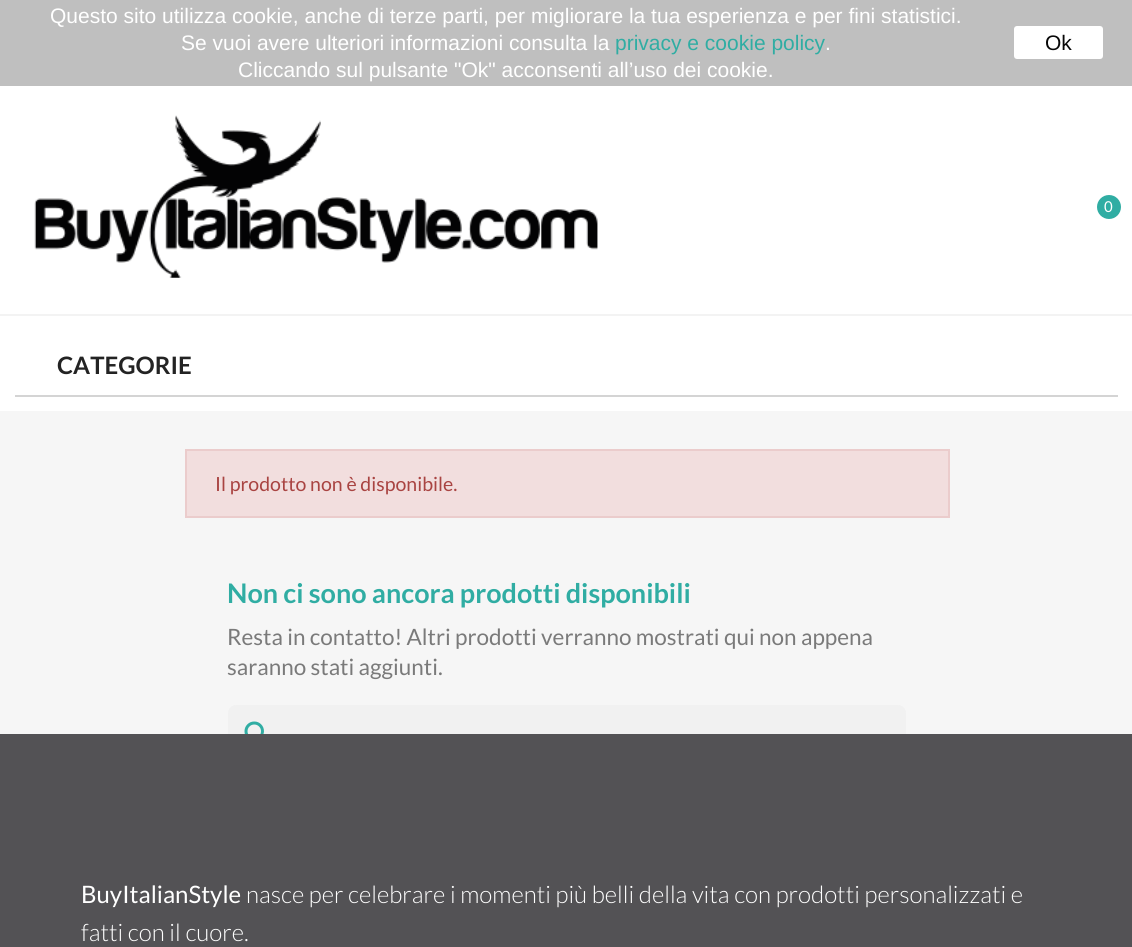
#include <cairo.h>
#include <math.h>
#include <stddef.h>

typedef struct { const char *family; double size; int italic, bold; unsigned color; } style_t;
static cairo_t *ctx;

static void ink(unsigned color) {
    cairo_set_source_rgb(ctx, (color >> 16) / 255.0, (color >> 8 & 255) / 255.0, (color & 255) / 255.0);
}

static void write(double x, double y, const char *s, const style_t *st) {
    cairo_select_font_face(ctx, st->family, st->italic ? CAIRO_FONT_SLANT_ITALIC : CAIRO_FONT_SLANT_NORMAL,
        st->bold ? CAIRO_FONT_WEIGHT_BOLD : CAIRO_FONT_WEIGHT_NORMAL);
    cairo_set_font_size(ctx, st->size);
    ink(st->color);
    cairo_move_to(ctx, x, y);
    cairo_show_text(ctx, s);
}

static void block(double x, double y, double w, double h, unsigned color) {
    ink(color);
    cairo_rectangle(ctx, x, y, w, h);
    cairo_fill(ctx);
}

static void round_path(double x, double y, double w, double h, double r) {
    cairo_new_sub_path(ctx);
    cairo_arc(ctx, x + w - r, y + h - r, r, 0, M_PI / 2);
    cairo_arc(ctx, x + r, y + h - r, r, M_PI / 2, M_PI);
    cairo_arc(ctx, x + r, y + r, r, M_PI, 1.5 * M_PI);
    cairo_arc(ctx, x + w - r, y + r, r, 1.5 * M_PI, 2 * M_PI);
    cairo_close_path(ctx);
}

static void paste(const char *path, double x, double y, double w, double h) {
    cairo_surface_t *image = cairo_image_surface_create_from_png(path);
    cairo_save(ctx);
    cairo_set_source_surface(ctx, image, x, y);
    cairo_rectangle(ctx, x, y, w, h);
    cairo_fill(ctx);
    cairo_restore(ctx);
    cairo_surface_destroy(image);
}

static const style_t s1 = {"Liberation Sans", 21, 0, 0, 0xffffff};
static const style_t s2 = {"Liberation Sans", 21, 0, 0, 0x30ada3};
static const style_t s3 = {"Liberation Sans", 21, 0, 0, 0x080808};
static const style_t s4 = {"Lato", 15, 0, 0, 0xffffff};
static const style_t s5 = {"Lato", 24, 0, 1, 0x232323};
static const style_t s6 = {"Lato", 19.5, 0, 0, 0xa94442};
static const style_t s7 = {"Lato", 27, 0, 1, 0x30ada3};
static const style_t s8 = {"Lato", 22.5, 0, 0, 0x7a7a7a};
static const style_t s9 = {"Lato", 24, 0, 0, 0xffffff};
static const style_t s10 = {"Lato Light", 24, 0, 0, 0xffffff};

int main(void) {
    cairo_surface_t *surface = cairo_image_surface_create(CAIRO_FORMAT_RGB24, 1132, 947);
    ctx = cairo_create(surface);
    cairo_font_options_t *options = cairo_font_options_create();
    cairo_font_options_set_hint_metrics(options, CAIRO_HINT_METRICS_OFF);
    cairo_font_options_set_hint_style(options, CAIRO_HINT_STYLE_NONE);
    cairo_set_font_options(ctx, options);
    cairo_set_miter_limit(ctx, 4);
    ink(0xffffff);
    cairo_paint(ctx);
    block(0, 0, 1132, 86, 0xbfbfbf);
    write(50, 23, "Questo sito utilizza cookie, anche di terze parti, per migliorare la tua esperienza e per fini statistici.", &s1);
    write(181, 50, "Se vuoi avere ulteriori informazioni consulta la", &s1);
    write(615, 50, "privacy e cookie policy", &s2);
    write(825, 50, ".", &s1);
    write(238, 77, "Cliccando sul pulsante \"Ok\" acconsenti all’uso dei cookie.", &s1);
    round_path(1014, 26, 89, 33, 3);
    cairo_fill(ctx);
    write(1045, 50, "Ok", &s3);
    block(0, 314, 1132, 2, 0xf3f3f3);
    paste("pic1.png", 34, 115, 564, 163);
    ink(0x30ada3);
    cairo_arc(ctx, 1109, 207, 12, 0, 2 * M_PI);
    cairo_fill(ctx);
    write(1104, 212, "0", &s4);
    block(15, 395, 1103, 2, 0xd4d4d4);
    write(57, 374, "CATEGORIE", &s5);
    block(0, 411, 1132, 323, 0xf6f6f6);
    ink(0xf2dede);
    cairo_rectangle(ctx, 186, 450, 763, 67);
    cairo_fill_preserve(ctx);
    ink(0xebcccc);
    cairo_stroke(ctx);
    write(215, 491, "Il prodotto non è disponibile.", &s6);
    write(227, 603, "Non ci sono ancora prodotti disponibili", &s7);
    write(227, 645, "Resta in contatto! Altri prodotti verranno mostrati qui non appena", &s8);
    write(227, 675, "saranno stati aggiunti.", &s8);
    ink(0xf1f1f1);
    round_path(228, 705, 678, 60, 8);
    cairo_fill(ctx);
    paste("pic2.png", 244, 721, 20, 13);
    block(0, 734, 1132, 213, 0x535255);
    write(81, 903, "BuyItalianStyle", &s9);
    write(246, 903, "nasce per celebrare i momenti più belli della vita con prodotti personalizzati e", &s10);
    write(81, 941, "fatti con il cuore.", &s10);
    cairo_surface_write_to_png(surface, "screenshot.png");
    cairo_font_options_destroy(options);
    cairo_destroy(ctx);
    cairo_surface_destroy(surface);
    return 0;
}
